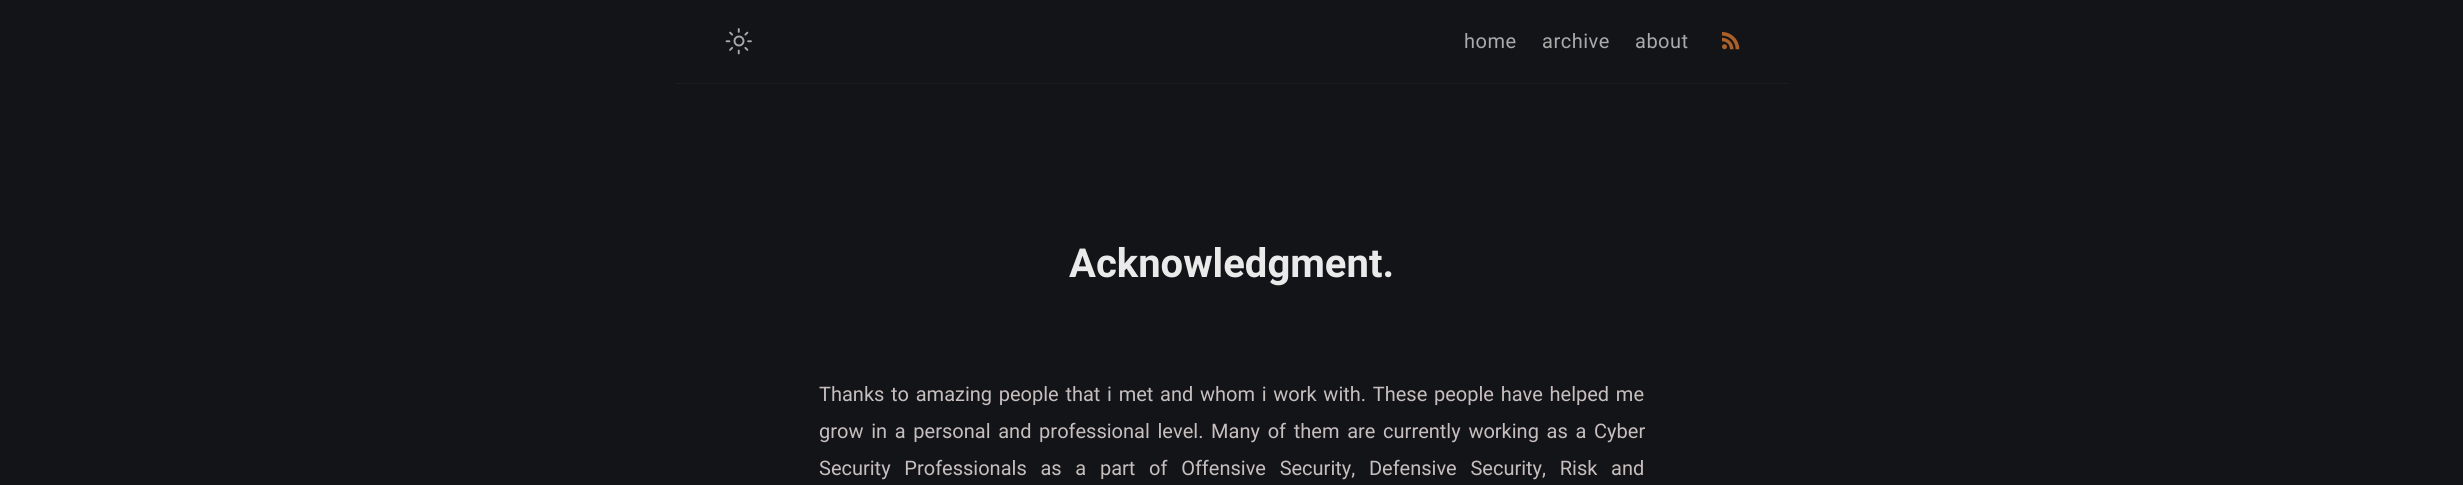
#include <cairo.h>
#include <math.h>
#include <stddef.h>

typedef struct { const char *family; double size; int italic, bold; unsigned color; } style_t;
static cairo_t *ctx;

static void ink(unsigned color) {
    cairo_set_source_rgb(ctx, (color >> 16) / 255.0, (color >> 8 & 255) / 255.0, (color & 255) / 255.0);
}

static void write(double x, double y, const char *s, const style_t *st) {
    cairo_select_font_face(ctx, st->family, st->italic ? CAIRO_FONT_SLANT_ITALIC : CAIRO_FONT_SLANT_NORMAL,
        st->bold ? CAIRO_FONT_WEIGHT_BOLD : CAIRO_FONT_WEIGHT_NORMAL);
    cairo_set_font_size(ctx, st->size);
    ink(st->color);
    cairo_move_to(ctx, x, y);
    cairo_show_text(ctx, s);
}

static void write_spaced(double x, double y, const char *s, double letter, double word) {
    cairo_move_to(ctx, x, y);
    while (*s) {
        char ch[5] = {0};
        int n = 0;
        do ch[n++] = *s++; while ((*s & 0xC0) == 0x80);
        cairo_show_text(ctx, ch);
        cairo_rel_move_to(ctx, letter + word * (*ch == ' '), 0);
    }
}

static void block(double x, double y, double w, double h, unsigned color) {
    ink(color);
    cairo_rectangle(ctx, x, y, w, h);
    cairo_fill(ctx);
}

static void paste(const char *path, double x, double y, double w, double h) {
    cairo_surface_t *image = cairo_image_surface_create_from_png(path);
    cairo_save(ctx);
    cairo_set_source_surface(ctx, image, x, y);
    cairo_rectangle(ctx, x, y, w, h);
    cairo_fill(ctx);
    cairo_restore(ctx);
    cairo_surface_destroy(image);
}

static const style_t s1 = {"Roboto", 40, 0, 1, 0xeaeaea};

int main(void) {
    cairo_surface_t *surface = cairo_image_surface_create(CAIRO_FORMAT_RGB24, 2463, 485);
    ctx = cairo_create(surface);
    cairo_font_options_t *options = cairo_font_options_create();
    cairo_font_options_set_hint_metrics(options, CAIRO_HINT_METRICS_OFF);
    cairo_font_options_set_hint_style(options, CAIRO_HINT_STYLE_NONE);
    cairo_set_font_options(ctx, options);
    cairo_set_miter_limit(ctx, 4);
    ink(0x131418);
    cairo_paint(ctx);
    block(676, 83, 1113, 1, 0x1b1d25);
    paste("pic1.png", 725, 28, 27, 27);
    cairo_select_font_face(ctx, "Roboto", CAIRO_FONT_SLANT_NORMAL, CAIRO_FONT_WEIGHT_NORMAL);
    cairo_set_font_size(ctx, 20);
    ink(0xaaaaab);
    write_spaced(1464, 48, "home", 0.5, 0);
    write_spaced(1542, 48, "archive", 0.5, 0);
    write_spaced(1635, 48, "about", 0.5, 0);
    paste("pic2.png", 1722, 32, 18, 18);
    write(1069, 277, "Acknowledgment.", &s1);
    cairo_select_font_face(ctx, "Roboto", CAIRO_FONT_SLANT_NORMAL, CAIRO_FONT_WEIGHT_NORMAL);
    cairo_set_font_size(ctx, 20);
    ink(0xc7bebe);
    write_spaced(819, 401, "Thanks to amazing people that i met and whom i work with. These people have helped me", 0, 1.75);
    write_spaced(819, 438, "grow in a personal and professional level. Many of them are currently working as a Cyber", 0, 2.75);
    write_spaced(819, 475, "Security Professionals as a part of Offensive Security, Defensive Security, Risk and", 0, 8.75);
    cairo_surface_write_to_png(surface, "screenshot.png");
    cairo_font_options_destroy(options);
    cairo_destroy(ctx);
    cairo_surface_destroy(surface);
    return 0;
}
